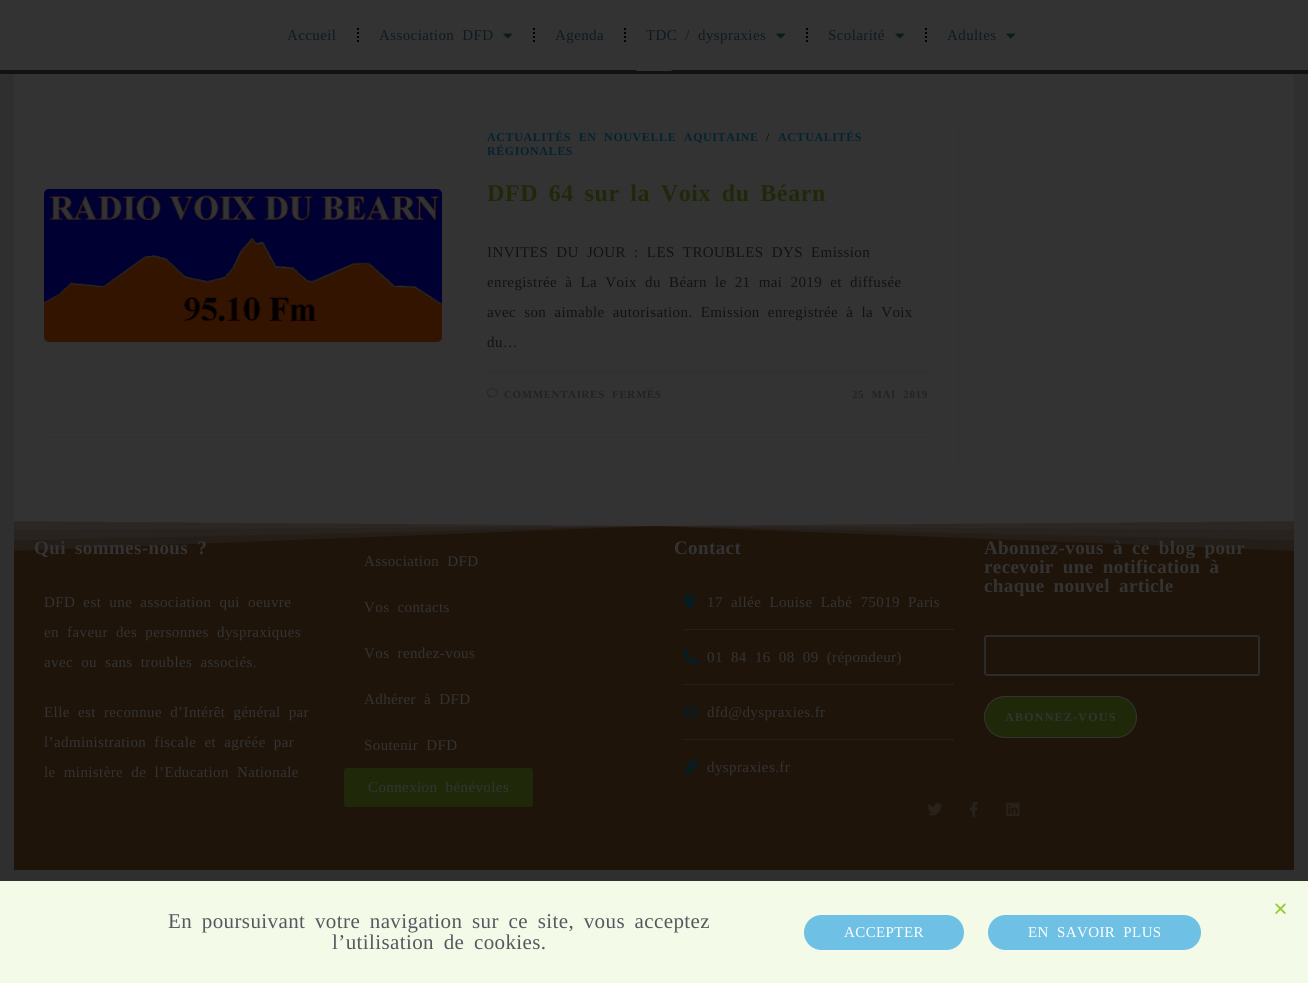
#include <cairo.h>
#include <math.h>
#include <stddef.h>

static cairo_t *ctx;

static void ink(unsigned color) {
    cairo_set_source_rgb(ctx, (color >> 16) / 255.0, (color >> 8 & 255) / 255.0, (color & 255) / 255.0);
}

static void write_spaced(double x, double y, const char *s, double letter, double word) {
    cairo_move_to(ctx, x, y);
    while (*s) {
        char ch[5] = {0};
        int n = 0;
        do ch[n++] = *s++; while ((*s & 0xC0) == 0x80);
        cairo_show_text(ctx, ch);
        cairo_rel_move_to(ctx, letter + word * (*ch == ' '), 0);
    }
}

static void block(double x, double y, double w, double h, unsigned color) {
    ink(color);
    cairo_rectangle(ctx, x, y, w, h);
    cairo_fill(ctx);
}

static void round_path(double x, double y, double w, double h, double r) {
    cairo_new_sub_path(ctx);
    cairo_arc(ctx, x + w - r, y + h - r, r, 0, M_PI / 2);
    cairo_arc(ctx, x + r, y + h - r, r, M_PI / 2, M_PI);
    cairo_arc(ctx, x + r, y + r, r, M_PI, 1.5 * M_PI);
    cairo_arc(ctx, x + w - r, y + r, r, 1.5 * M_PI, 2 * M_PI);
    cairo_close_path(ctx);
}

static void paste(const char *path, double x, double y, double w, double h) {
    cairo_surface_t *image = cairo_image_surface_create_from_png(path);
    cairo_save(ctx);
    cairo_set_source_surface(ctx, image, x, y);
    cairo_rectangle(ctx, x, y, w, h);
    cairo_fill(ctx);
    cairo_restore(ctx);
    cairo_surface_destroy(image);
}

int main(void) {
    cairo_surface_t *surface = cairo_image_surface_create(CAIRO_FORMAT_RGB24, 1308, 983);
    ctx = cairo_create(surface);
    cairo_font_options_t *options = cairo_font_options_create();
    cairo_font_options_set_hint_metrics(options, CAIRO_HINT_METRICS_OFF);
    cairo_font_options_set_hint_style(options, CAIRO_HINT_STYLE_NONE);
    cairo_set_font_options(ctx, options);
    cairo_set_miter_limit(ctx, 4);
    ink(0x2f2f2f);
    cairo_paint(ctx);
    block(14, 74, 1280, 443, 0x333333);
    block(0, 0, 1308, 70, 0x333333);
    block(0, 70, 1308, 4, 0x111213);
    cairo_select_font_face(ctx, "Liberation Serif", CAIRO_FONT_SLANT_NORMAL, CAIRO_FONT_WEIGHT_NORMAL);
    cairo_set_font_size(ctx, 15);
    ink(0x0e1a1f);
    write_spaced(287, 40, "Accueil", 0.4, 0);
    cairo_new_path(ctx);
    cairo_move_to(ctx, 358, 28);
    cairo_line_to(ctx, 358, 30);
    cairo_move_to(ctx, 358, 32);
    cairo_line_to(ctx, 358, 34);
    cairo_move_to(ctx, 358, 36);
    cairo_line_to(ctx, 358, 38);
    cairo_move_to(ctx, 358, 40);
    cairo_line_to(ctx, 358, 42);
    ink(0x000000);
    cairo_stroke(ctx);
    ink(0x0e1a1f);
    write_spaced(379, 40, "Association DFD", 0.4, 4);
    paste("pic1.png", 503, 33, 9, 6);
    cairo_new_path(ctx);
    cairo_move_to(ctx, 534, 28);
    cairo_line_to(ctx, 534, 30);
    cairo_move_to(ctx, 534, 32);
    cairo_line_to(ctx, 534, 34);
    cairo_move_to(ctx, 534, 36);
    cairo_line_to(ctx, 534, 38);
    cairo_move_to(ctx, 534, 40);
    cairo_line_to(ctx, 534, 42);
    ink(0x000000);
    cairo_stroke(ctx);
    ink(0x0e1a1f);
    write_spaced(555, 40, "Agenda", 0.4, 0);
    cairo_new_path(ctx);
    cairo_move_to(ctx, 625, 28);
    cairo_line_to(ctx, 625, 30);
    cairo_move_to(ctx, 625, 32);
    cairo_line_to(ctx, 625, 34);
    cairo_move_to(ctx, 625, 36);
    cairo_line_to(ctx, 625, 38);
    cairo_move_to(ctx, 625, 40);
    cairo_line_to(ctx, 625, 42);
    ink(0x000000);
    cairo_stroke(ctx);
    ink(0x0e1a1f);
    write_spaced(646, 40, "TDC / dyspraxies", 0.4, 4);
    paste("pic1.png", 776, 33, 9, 6);
    cairo_new_path(ctx);
    cairo_move_to(ctx, 807, 28);
    cairo_line_to(ctx, 807, 30);
    cairo_move_to(ctx, 807, 32);
    cairo_line_to(ctx, 807, 34);
    cairo_move_to(ctx, 807, 36);
    cairo_line_to(ctx, 807, 38);
    cairo_move_to(ctx, 807, 40);
    cairo_line_to(ctx, 807, 42);
    ink(0x000000);
    cairo_stroke(ctx);
    ink(0x0e1a1f);
    write_spaced(828, 40, "Scolarité", 0.4, 0);
    paste("pic1.png", 895, 33, 9, 6);
    cairo_new_path(ctx);
    cairo_move_to(ctx, 926, 28);
    cairo_line_to(ctx, 926, 30);
    cairo_move_to(ctx, 926, 32);
    cairo_line_to(ctx, 926, 34);
    cairo_move_to(ctx, 926, 36);
    cairo_line_to(ctx, 926, 38);
    cairo_move_to(ctx, 926, 40);
    cairo_line_to(ctx, 926, 42);
    ink(0x000000);
    cairo_stroke(ctx);
    ink(0x0e1a1f);
    write_spaced(947, 40, "Adultes", 0.4, 0);
    paste("pic1.png", 1006, 33, 9, 6);
    cairo_save(ctx);
    cairo_rectangle(ctx, 0, 52, 1308, 19);
    cairo_clip(ctx);
    ink(0x333333);
    cairo_new_path(ctx);
    cairo_move_to(ctx, 654, 52.5);
    cairo_line_to(ctx, 672.5, 71.5);
    cairo_line_to(ctx, 635.5, 71.5);
    cairo_close_path(ctx);
    cairo_fill(ctx);
    cairo_restore(ctx);
    block(958, 124, 1, 344, 0x303030);
    block(44, 437, 884, 1, 0x303030);
    paste("pic2.png", 44, 189, 398, 153);
    cairo_select_font_face(ctx, "Liberation Serif", CAIRO_FONT_SLANT_NORMAL, CAIRO_FONT_WEIGHT_BOLD);
    cairo_set_font_size(ctx, 12);
    ink(0x042330);
    write_spaced(487, 141, "ACTUALITÉS EN NOUVELLE AQUITAINE", 0.6, 4);
    ink(0x111213);
    write_spaced(766, 141, "/", 0.6, 0);
    ink(0x042330);
    write_spaced(778, 141, "ACTUALITÉS", 0.6, 0);
    write_spaced(487, 155, "RÉGIONALES", 0.6, 0);
    cairo_set_font_size(ctx, 24);
    ink(0x1f290a);
    write_spaced(487, 201, "DFD 64 sur la Voix du Béarn", 0.6, 4);
    cairo_select_font_face(ctx, "Liberation Serif", CAIRO_FONT_SLANT_NORMAL, CAIRO_FONT_WEIGHT_NORMAL);
    cairo_set_font_size(ctx, 15);
    ink(0x111213);
    write_spaced(487, 257, "INVITES DU JOUR : LES TROUBLES DYS Emission", 0.4, 4);
    write_spaced(487, 287, "enregistrée à La Voix du Béarn le 21 mai 2019 et diffusée", 0.4, 4);
    write_spaced(487, 317, "avec son aimable autorisation. Emission enregistrée à la Voix", 0.4, 4);
    write_spaced(487, 347, "du…", 0.4, 0);
    block(487, 372, 441, 1, 0x2f2f2f);
    paste("pic3.png", 487, 388, 11, 10);
    cairo_select_font_face(ctx, "Liberation Serif", CAIRO_FONT_SLANT_NORMAL, CAIRO_FONT_WEIGHT_BOLD);
    cairo_set_font_size(ctx, 11);
    ink(0x222222);
    write_spaced(504, 398, "COMMENTAIRES FERMÉS", 0.6, 4);
    write_spaced(852, 398, "25 MAI 2019", 0.6, 4);
    block(14, 521, 1280, 349, 0x1f140a);
    cairo_save(ctx);
    cairo_rectangle(ctx, 14, 517, 1280, 42);
    cairo_clip(ctx);
    cairo_set_source_rgba(ctx, 0.2, 0.2, 0.2, 0.33);
    cairo_new_path(ctx);
    cairo_move_to(ctx, -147, 517);
    cairo_line_to(ctx, -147, 557);
    cairo_line_to(ctx, 654, 526);
    cairo_line_to(ctx, 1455, 557);
    cairo_line_to(ctx, 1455, 517);
    cairo_close_path(ctx);
    cairo_fill(ctx);
    cairo_new_path(ctx);
    cairo_move_to(ctx, -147, 517);
    cairo_line_to(ctx, -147, 544);
    cairo_line_to(ctx, 654, 526);
    cairo_line_to(ctx, 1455, 544);
    cairo_line_to(ctx, 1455, 517);
    cairo_close_path(ctx);
    cairo_fill(ctx);
    cairo_new_path(ctx);
    cairo_move_to(ctx, -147, 517);
    cairo_line_to(ctx, -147, 531);
    cairo_line_to(ctx, 654, 526);
    cairo_line_to(ctx, 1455, 531);
    cairo_line_to(ctx, 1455, 517);
    cairo_close_path(ctx);
    cairo_fill(ctx);
    ink(0x333333);
    cairo_new_path(ctx);
    cairo_move_to(ctx, -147, 517);
    cairo_line_to(ctx, -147, 520);
    cairo_line_to(ctx, 654, 526);
    cairo_line_to(ctx, 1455, 520);
    cairo_line_to(ctx, 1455, 517);
    cairo_close_path(ctx);
    cairo_fill(ctx);
    cairo_restore(ctx);
    cairo_set_font_size(ctx, 19);
    ink(0x333333);
    write_spaced(34, 554, "Qui sommes-nous ?", 0.4, 4);
    cairo_select_font_face(ctx, "Liberation Serif", CAIRO_FONT_SLANT_NORMAL, CAIRO_FONT_WEIGHT_NORMAL);
    cairo_set_font_size(ctx, 15);
    write_spaced(44, 607, "DFD est une association qui oeuvre", 0.4, 4);
    write_spaced(44, 637, "en faveur des personnes dyspraxiques", 0.4, 4);
    write_spaced(44, 667, "avec ou sans troubles associés.", 0.4, 4);
    write_spaced(44, 717, "Elle est reconnue d’Intérêt général par", 0.4, 4);
    write_spaced(44, 747, "l’administration fiscale et agréée par", 0.4, 4);
    write_spaced(44, 777, "le ministère de l’Education Nationale", 0.4, 4);
    write_spaced(364, 566, "Association DFD", 0.4, 4);
    write_spaced(364, 612, "Vos contacts", 0.4, 4);
    write_spaced(364, 658, "Vos rendez-vous", 0.4, 4);
    write_spaced(364, 704, "Adhérer à DFD", 0.4, 4);
    write_spaced(364, 750, "Soutenir DFD", 0.4, 4);
    ink(0x1f290a);
    round_path(344, 768, 189, 39, 3);
    cairo_fill(ctx);
    ink(0x333333);
    write_spaced(368, 792, "Connexion bénévoles", 0.4, 4);
    cairo_select_font_face(ctx, "Liberation Serif", CAIRO_FONT_SLANT_NORMAL, CAIRO_FONT_WEIGHT_BOLD);
    cairo_set_font_size(ctx, 19);
    write_spaced(674, 554, "Contact", 0.4, 0);
    paste("pic4.png", 684, 594, 11, 15);
    cairo_select_font_face(ctx, "Liberation Serif", CAIRO_FONT_SLANT_NORMAL, CAIRO_FONT_WEIGHT_NORMAL);
    cairo_set_font_size(ctx, 15);
    write_spaced(707, 607, "17 allée Louise Labé 75019 Paris", 0.4, 4);
    cairo_new_path(ctx);
    cairo_move_to(ctx, 684, 629.5);
    cairo_line_to(ctx, 954, 629.5);
    ink(0x2c2c2c);
    cairo_set_line_width(ctx, 1);
    cairo_set_dash(ctx, (double[]){1, 1}, 2, 0);
    cairo_stroke(ctx);
    paste("pic5.png", 684, 649, 14, 15);
    ink(0x333333);
    write_spaced(707, 662, "01 84 16 08 09 (répondeur)", 0.4, 4);
    cairo_new_path(ctx);
    cairo_move_to(ctx, 684, 684.5);
    cairo_line_to(ctx, 954, 684.5);
    ink(0x2c2c2c);
    cairo_stroke(ctx);
    paste("pic6.png", 684, 706, 14, 11);
    ink(0x333333);
    write_spaced(707, 717, "dfd@dyspraxies.fr", 0.4, 0);
    cairo_new_path(ctx);
    cairo_move_to(ctx, 684, 739.5);
    cairo_line_to(ctx, 954, 739.5);
    ink(0x2c2c2c);
    cairo_stroke(ctx);
    paste("pic7.png", 684, 759, 14, 15);
    ink(0x333333);
    write_spaced(707, 772, "dyspraxies.fr", 0.4, 0);
    cairo_select_font_face(ctx, "Liberation Serif", CAIRO_FONT_SLANT_NORMAL, CAIRO_FONT_WEIGHT_BOLD);
    cairo_set_font_size(ctx, 19);
    write_spaced(984, 554, "Abonnez-vous à ce blog pour", 0.4, 4);
    write_spaced(984, 573, "recevoir une notification à", 0.4, 4);
    write_spaced(984, 592, "chaque nouvel article", 0.4, 4);
    round_path(985, 636, 274, 39, 2);
    ink(0x2c2c2c);
    cairo_set_line_width(ctx, 2);
    cairo_set_dash(ctx, NULL, 0, 0);
    cairo_stroke(ctx);
    ink(0x1f290a);
    round_path(984.5, 696.5, 152, 41, 20.5);
    cairo_fill_preserve(ctx);
    ink(0x333333);
    cairo_set_line_width(ctx, 1);
    cairo_stroke(ctx);
    cairo_set_font_size(ctx, 12);
    write_spaced(1005, 721, "ABONNEZ-VOUS", 1.25, 0);
    paste("pic8.png", 927, 803, 15, 13);
    paste("pic9.png", 969, 801, 9, 16);
    paste("pic10.png", 1006, 802, 14, 14);
    block(0, 881, 1308, 102, 0xf4fae8);
    paste("pic11.png", 1275, 903, 11, 11);
    cairo_select_font_face(ctx, "Liberation Serif", CAIRO_FONT_SLANT_NORMAL, CAIRO_FONT_WEIGHT_NORMAL);
    cairo_set_font_size(ctx, 21);
    ink(0x54595f);
    write_spaced(168, 928, "En poursuivant votre navigation sur ce site, vous acceptez", 0.4, 4);
    write_spaced(332, 949, "l’utilisation de cookies.", 0.4, 4);
    ink(0x6ec1e4);
    round_path(804, 915, 160, 35, 17.5);
    cairo_fill(ctx);
    cairo_set_font_size(ctx, 15);
    ink(0xffffff);
    write_spaced(844, 937, "ACCEPTER", 0.4, 0);
    ink(0x6ec1e4);
    round_path(988, 915, 213, 35, 17.5);
    cairo_fill(ctx);
    ink(0xffffff);
    write_spaced(1028, 937, "EN SAVOIR PLUS", 0.4, 4);
    cairo_surface_write_to_png(surface, "screenshot.png");
    cairo_font_options_destroy(options);
    cairo_destroy(ctx);
    cairo_surface_destroy(surface);
    return 0;
}
